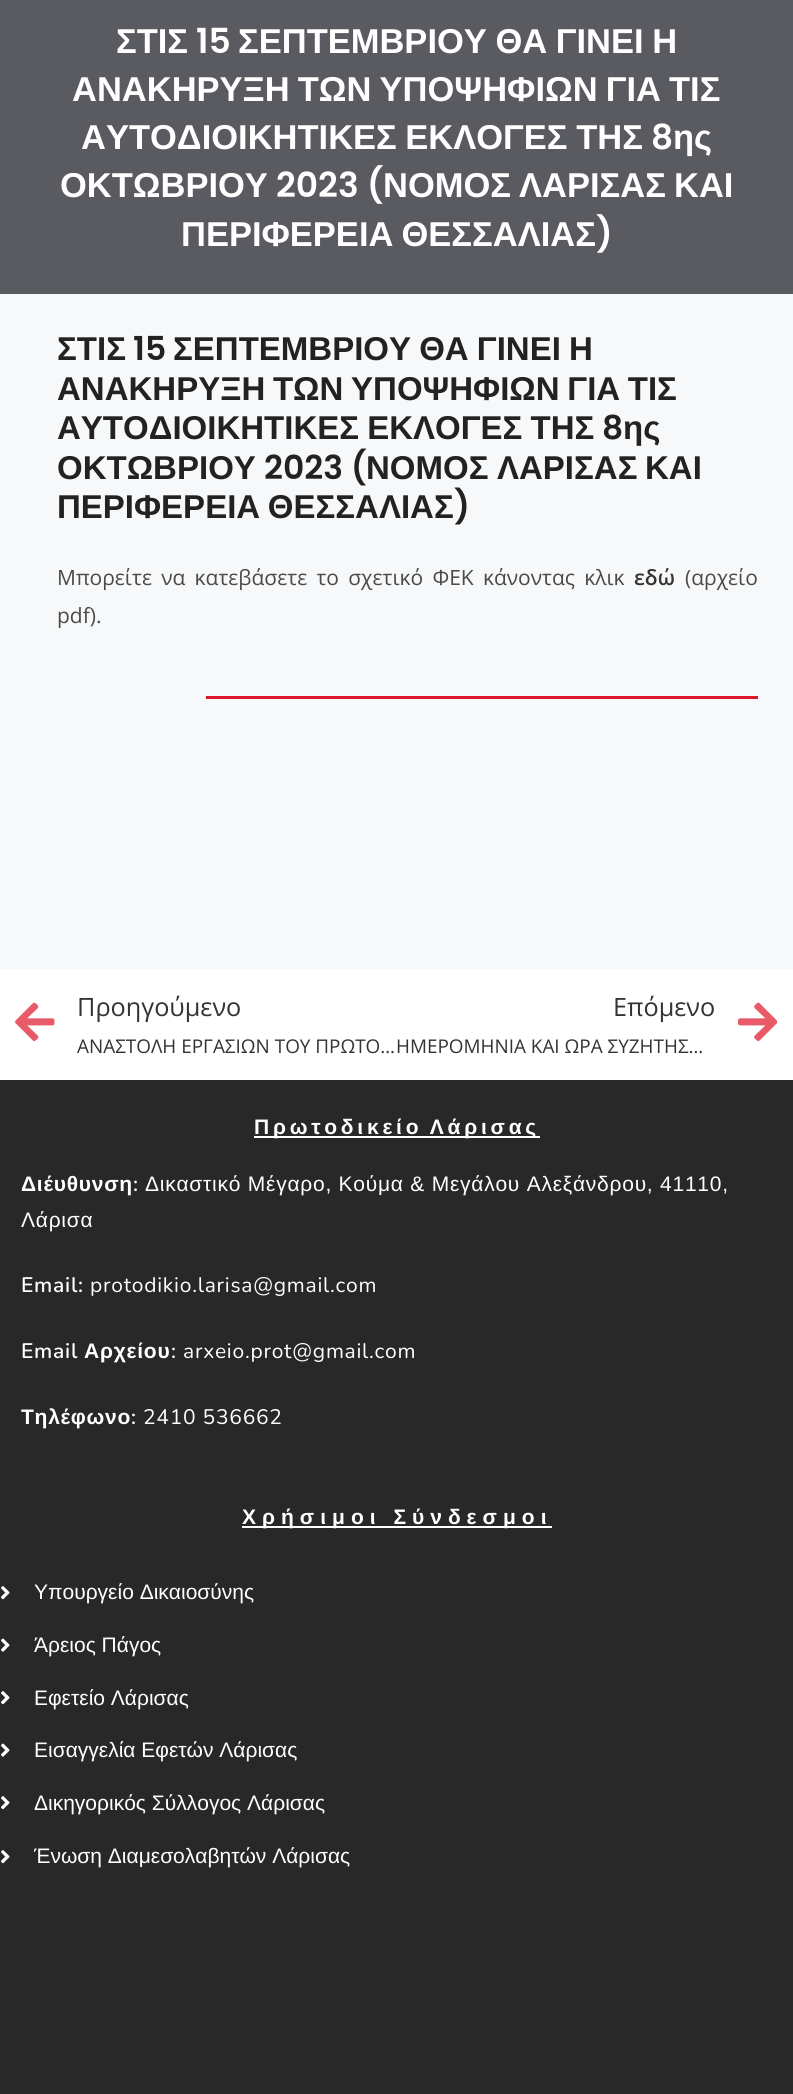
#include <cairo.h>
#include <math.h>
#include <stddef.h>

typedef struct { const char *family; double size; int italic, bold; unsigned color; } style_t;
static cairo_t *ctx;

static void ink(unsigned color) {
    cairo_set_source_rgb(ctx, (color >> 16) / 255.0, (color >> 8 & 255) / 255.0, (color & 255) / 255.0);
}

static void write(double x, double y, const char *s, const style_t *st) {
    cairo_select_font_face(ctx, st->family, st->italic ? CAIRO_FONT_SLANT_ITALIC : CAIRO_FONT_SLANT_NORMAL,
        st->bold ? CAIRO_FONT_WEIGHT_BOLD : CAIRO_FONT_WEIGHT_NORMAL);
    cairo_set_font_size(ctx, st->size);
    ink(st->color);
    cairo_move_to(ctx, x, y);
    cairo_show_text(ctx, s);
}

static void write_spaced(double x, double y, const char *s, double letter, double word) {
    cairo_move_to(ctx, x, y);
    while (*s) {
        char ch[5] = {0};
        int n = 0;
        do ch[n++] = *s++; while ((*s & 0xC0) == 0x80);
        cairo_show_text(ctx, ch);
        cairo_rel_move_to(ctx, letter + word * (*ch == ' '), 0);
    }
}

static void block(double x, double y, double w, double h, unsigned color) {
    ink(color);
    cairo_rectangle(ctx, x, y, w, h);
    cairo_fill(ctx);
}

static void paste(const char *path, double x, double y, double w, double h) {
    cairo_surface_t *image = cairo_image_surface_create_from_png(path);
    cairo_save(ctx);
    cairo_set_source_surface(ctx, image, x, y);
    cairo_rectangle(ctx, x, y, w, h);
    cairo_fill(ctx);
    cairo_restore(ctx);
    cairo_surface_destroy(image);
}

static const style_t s1 = {"Liberation Sans", 34.5, 0, 1, 0xffffff};
static const style_t s2 = {"Poppins SemiBold", 34.5, 0, 0, 0xffffff};
static const style_t s3 = {"Liberation Sans", 33, 0, 1, 0x222222};
static const style_t s4 = {"Poppins SemiBold", 33, 0, 0, 0x222222};
static const style_t s5 = {"Open Sans SemiBold", 21, 0, 0, 0x333333};
static const style_t s6 = {"Open Sans", 21, 0, 0, 0x4a4a4a};
static const style_t s7 = {"Open Sans", 25.25, 0, 0, 0x333333};
static const style_t s8 = {"Open Sans", 18.9, 0, 0, 0x333333};
static const style_t s9 = {"Liberation Sans", 21, 0, 0, 0xffffff};

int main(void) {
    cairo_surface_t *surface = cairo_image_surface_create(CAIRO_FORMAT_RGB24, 793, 2094);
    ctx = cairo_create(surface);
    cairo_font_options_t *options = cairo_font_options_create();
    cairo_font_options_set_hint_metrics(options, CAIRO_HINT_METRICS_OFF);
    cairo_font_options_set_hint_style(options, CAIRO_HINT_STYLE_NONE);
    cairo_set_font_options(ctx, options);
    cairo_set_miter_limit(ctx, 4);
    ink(0x5a5a61);
    cairo_paint(ctx);
    write(116, 53, "ΣΤΙΣ", &s1);
    write(196, 53, "15", &s2);
    cairo_select_font_face(ctx, "Liberation Sans", CAIRO_FONT_SLANT_NORMAL, CAIRO_FONT_WEIGHT_BOLD);
    write_spaced(238, 53, "ΣΕΠΤΕΜΒΡΙΟΥ ΘΑ ΓΙΝΕΙ Η", 0, -1);
    write_spaced(72, 101, "ΑΝΑΚΗΡΥΞΗ ΤΩΝ ΥΠΟΨΗΦΙΩΝ ΓΙΑ ΤΙΣ", 0, -1.5);
    write_spaced(81, 149, "ΑΥΤΟΔΙΟΙΚΗΤΙΚΕΣ ΕΚΛΟΓΕΣ ΤΗΣ", 0, -1);
    write(651, 149, "8", &s2);
    write(673, 149, "ης", &s1);
    write(60, 197, "ΟΚΤΩΒΡΙΟΥ", &s1);
    write(276, 197, "2023 (", &s2);
    write(383, 197, "ΝΟΜΟΣ", &s1);
    write(519, 197, "ΛΑΡΙΣΑΣ", &s1);
    write(674, 197, "ΚΑΙ", &s1);
    write_spaced(181, 246, "ΠΕΡΙΦΕΡΕΙΑ ΘΕΣΣΑΛΙΑΣ", 0, -1.5);
    write(596, 246, ")", &s2);
    block(0, 294, 793, 675, 0xf7f8f9);
    write(57, 360, "ΣΤΙΣ", &s3);
    write(133, 360, "15", &s4);
    cairo_select_font_face(ctx, "Liberation Sans", CAIRO_FONT_SLANT_NORMAL, CAIRO_FONT_WEIGHT_BOLD);
    write_spaced(173, 360, "ΣΕΠΤΕΜΒΡΙΟΥ ΘΑ ΓΙΝΕΙ Η", 0, -1);
    write_spaced(57, 400, "ΑΝΑΚΗΡΥΞΗ ΤΩΝ ΥΠΟΨΗΦΙΩΝ ΓΙΑ ΤΙΣ", 0, -1.5);
    write_spaced(57, 439, "ΑΥΤΟΔΙΟΙΚΗΤΙΚΕΣ ΕΚΛΟΓΕΣ ΤΗΣ", 0, -1);
    write(602, 439, "8", &s4);
    write(623, 439, "ης", &s3);
    write(57, 479, "ΟΚΤΩΒΡΙΟΥ", &s3);
    write(264, 479, "2023 (", &s4);
    write(366, 479, "ΝΟΜΟΣ", &s3);
    write(497, 479, "ΛΑΡΙΣΑΣ", &s3);
    write(645, 479, "ΚΑΙ", &s3);
    write_spaced(57, 518, "ΠΕΡΙΦΕΡΕΙΑ ΘΕΣΣΑΛΙΑΣ", 0, -1.5);
    write(454, 518, ")", &s4);
    cairo_select_font_face(ctx, "Open Sans", CAIRO_FONT_SLANT_NORMAL, CAIRO_FONT_WEIGHT_NORMAL);
    cairo_set_font_size(ctx, 21);
    ink(0x4a4a4a);
    write_spaced(57, 585, "Μπορείτε να κατεβάσετε το σχετικό ΦΕΚ κάνοντας κλικ", 0, 3.75);
    write(634, 585, "εδώ", &s5);
    write(685, 585, "(αρχείο", &s6);
    write(57, 623, "pdf).", &s6);
    block(206, 696, 552, 3, 0xe0162b);
    block(0, 969, 793, 111, 0xffffff);
    paste("pic1.png", 15, 1002, 40, 39);
    write(77, 1016, "Προηγούμενo", &s7);
    write(77, 1053, "ΑΝΑΣΤΟΛΗ ΕΡΓΑΣΙΩΝ ΤΟΥ ΠΡΩΤΟ…", &s8);
    write(613, 1016, "Επόμενo", &s7);
    write(396, 1053, "ΗΜΕΡΟΜΗΝΙΑ ΚΑΙ ΩΡΑ ΣΥΖΗΤΗΣ…", &s8);
    paste("pic2.png", 738, 1002, 39, 39);
    block(0, 1080, 793, 1014, 0x282828);
    block(254, 1136, 286, 2, 0xffffff);
    cairo_select_font_face(ctx, "Liberation Sans", CAIRO_FONT_SLANT_NORMAL, CAIRO_FONT_WEIGHT_BOLD);
    cairo_set_font_size(ctx, 21);
    write_spaced(254, 1134, "Πρωτοδικείο Λάρισας", 3.75, -2);
    write_spaced(21, 1191, "Διέυθυνση", 0.75, 0);
    cairo_select_font_face(ctx, "Nunito SemiBold", CAIRO_FONT_SLANT_NORMAL, CAIRO_FONT_WEIGHT_NORMAL);
    write_spaced(133, 1191, ":", 0.75, 0);
    cairo_select_font_face(ctx, "Liberation Sans", CAIRO_FONT_SLANT_NORMAL, CAIRO_FONT_WEIGHT_NORMAL);
    write_spaced(145, 1191, "Δικαστικό Μέγαρο, Κούμα & Μεγάλου Αλεξάνδρου, 41110,", 0.75, 0);
    write_spaced(21, 1227, "Λάρισα", 0.75, 0);
    cairo_select_font_face(ctx, "Nunito SemiBold", CAIRO_FONT_SLANT_NORMAL, CAIRO_FONT_WEIGHT_NORMAL);
    write_spaced(21, 1292, "Email:", 0.75, 0);
    cairo_select_font_face(ctx, "Nunito", CAIRO_FONT_SLANT_NORMAL, CAIRO_FONT_WEIGHT_NORMAL);
    write_spaced(90, 1292, "protodikio.larisa@gmail.com", 0.75, 0);
    cairo_select_font_face(ctx, "Nunito SemiBold", CAIRO_FONT_SLANT_NORMAL, CAIRO_FONT_WEIGHT_NORMAL);
    write_spaced(21, 1358, "Email", 0.75, 0);
    cairo_select_font_face(ctx, "Liberation Sans", CAIRO_FONT_SLANT_NORMAL, CAIRO_FONT_WEIGHT_BOLD);
    write_spaced(84, 1358, "Αρχείου", 0.75, 0);
    cairo_select_font_face(ctx, "Nunito SemiBold", CAIRO_FONT_SLANT_NORMAL, CAIRO_FONT_WEIGHT_NORMAL);
    write_spaced(171, 1358, ":", 0.75, 0);
    cairo_select_font_face(ctx, "Nunito", CAIRO_FONT_SLANT_NORMAL, CAIRO_FONT_WEIGHT_NORMAL);
    write_spaced(183, 1358, "arxeio.prot@gmail.com", 0.75, 0);
    cairo_select_font_face(ctx, "Liberation Sans", CAIRO_FONT_SLANT_NORMAL, CAIRO_FONT_WEIGHT_BOLD);
    write_spaced(21, 1424, "Τηλέφωνο", 0.75, 0);
    cairo_select_font_face(ctx, "Nunito SemiBold", CAIRO_FONT_SLANT_NORMAL, CAIRO_FONT_WEIGHT_NORMAL);
    write_spaced(131, 1424, ":", 0.75, 0);
    cairo_select_font_face(ctx, "Nunito", CAIRO_FONT_SLANT_NORMAL, CAIRO_FONT_WEIGHT_NORMAL);
    write_spaced(143, 1424, "2410 536662", 0.75, 0);
    block(242, 1526, 310, 2, 0xffffff);
    cairo_select_font_face(ctx, "Liberation Sans", CAIRO_FONT_SLANT_NORMAL, CAIRO_FONT_WEIGHT_BOLD);
    write_spaced(242, 1524, "Χρήσιμοι Σύνδεσμοι", 6, 0);
    paste("pic3.png", 1, 1586, 9, 14);
    write(34, 1599, "Υπουργείο Δικαιοσύνης", &s9);
    paste("pic4.png", 1, 1638, 9, 14);
    write(34, 1652, "Άρειος Πάγος", &s9);
    paste("pic3.png", 1, 1691, 9, 14);
    write(34, 1705, "Εφετείο Λάρισας", &s9);
    paste("pic4.png", 1, 1743, 9, 14);
    write(34, 1757, "Εισαγγελία Εφετών Λάρισας", &s9);
    paste("pic3.png", 1, 1796, 9, 14);
    write(34, 1810, "Δικηγορικός Σύλλογος Λάρισας", &s9);
    paste("pic3.png", 1, 1850, 9, 14);
    write(34, 1863, "Ένωση Διαμεσολαβητών Λάρισας", &s9);
    cairo_surface_write_to_png(surface, "screenshot.png");
    cairo_font_options_destroy(options);
    cairo_destroy(ctx);
    cairo_surface_destroy(surface);
    return 0;
}
